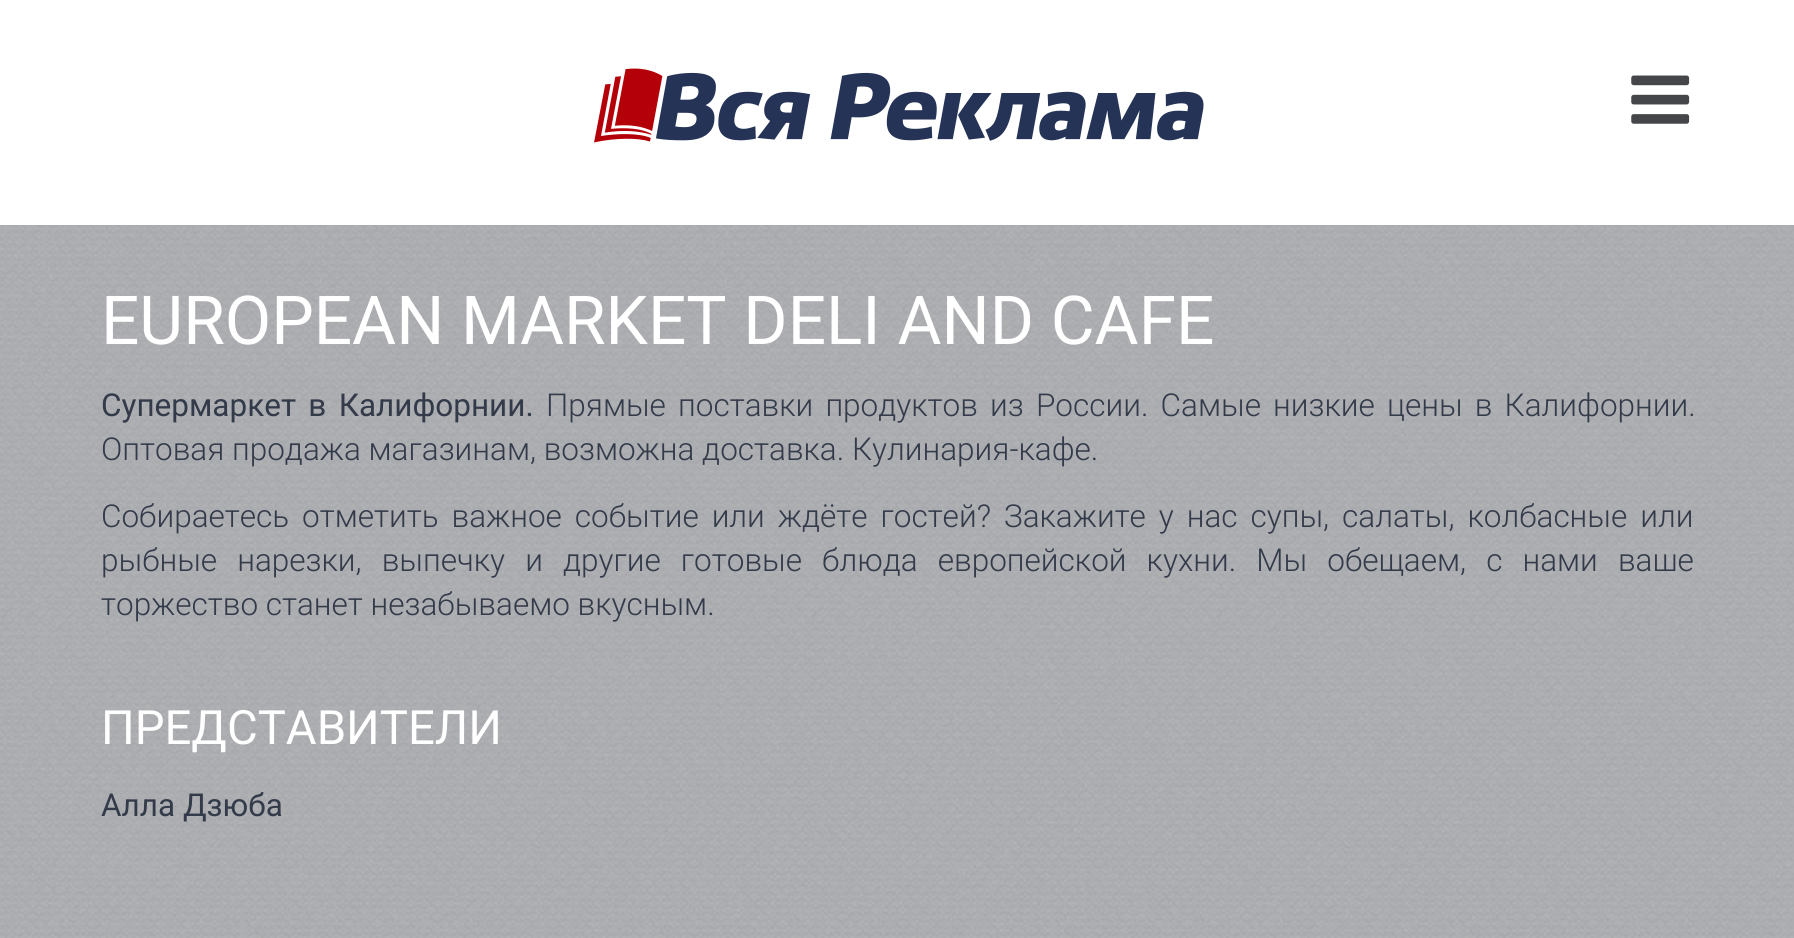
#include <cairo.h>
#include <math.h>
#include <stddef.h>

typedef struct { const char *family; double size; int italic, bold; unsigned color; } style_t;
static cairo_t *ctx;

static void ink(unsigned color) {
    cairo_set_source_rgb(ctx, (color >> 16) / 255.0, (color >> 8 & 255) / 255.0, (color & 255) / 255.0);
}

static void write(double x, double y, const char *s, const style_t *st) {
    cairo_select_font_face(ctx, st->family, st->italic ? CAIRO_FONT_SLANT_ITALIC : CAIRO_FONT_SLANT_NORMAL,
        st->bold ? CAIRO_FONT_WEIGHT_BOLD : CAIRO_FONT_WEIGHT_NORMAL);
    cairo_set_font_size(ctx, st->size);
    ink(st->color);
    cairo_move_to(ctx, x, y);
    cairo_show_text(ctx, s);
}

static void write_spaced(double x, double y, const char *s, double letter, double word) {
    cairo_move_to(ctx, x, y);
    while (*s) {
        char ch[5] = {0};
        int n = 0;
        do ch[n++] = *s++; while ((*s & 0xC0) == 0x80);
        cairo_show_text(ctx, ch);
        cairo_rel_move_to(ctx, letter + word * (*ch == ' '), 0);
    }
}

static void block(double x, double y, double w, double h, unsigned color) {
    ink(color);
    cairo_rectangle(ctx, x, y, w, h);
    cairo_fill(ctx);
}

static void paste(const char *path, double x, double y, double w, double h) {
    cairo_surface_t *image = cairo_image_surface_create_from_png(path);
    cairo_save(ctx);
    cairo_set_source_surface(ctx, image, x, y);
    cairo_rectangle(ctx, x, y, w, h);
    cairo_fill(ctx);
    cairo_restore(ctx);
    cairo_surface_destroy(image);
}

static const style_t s1 = {"Roboto", 67.5, 0, 0, 0xffffff};
static const style_t s2 = {"Roboto Light", 31.5, 0, 0, 0x333a49};
static const style_t s3 = {"Roboto", 47.25, 0, 0, 0xffffff};
static const style_t s4 = {"Roboto", 31.5, 0, 0, 0x333a49};

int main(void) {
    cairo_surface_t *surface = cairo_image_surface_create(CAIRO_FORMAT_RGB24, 1794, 938);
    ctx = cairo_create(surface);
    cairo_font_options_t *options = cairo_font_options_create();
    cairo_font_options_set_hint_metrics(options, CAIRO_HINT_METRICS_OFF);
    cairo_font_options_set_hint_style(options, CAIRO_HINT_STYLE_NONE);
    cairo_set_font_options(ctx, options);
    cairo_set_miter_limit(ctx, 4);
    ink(0xffffff);
    cairo_paint(ctx);
    paste("pic1.png", 594, 68, 610, 75);
    paste("pic2.png", 1631, 75, 59, 49);
    block(0, 225, 1794, 713, 0xa1a4a9);
    paste("pic3.png", 0, 225, 1794, 713);
    write(101, 344, "EUROPEAN MARKET DELI AND CAFE", &s1);
    cairo_set_font_size(ctx, 31.5);
    ink(0x333a49);
    write_spaced(101, 416, "Супермаркет в Калифорнии.", 0, 4.5);
    cairo_select_font_face(ctx, "Roboto Light", CAIRO_FONT_SLANT_NORMAL, CAIRO_FONT_WEIGHT_NORMAL);
    write_spaced(546, 416, "Прямые поставки продуктов из России. Самые низкие цены в Калифорнии.", 0, 4.5);
    write(101, 460, "Оптовая продажа магазинам, возможна доставка. Кулинария-кафе.", &s2);
    write_spaced(101, 527, "Собираетесь отметить важное событие или ждёте гостей? Закажите у нас супы, салаты, колбасные или", 0, 5.25);
    write_spaced(101, 571, "рыбные нарезки, выпечку и другие готовые блюда европейской кухни. Мы обещаем, с нами ваше", 0, 12.4);
    write(101, 615, "торжество станет незабываемо вкусным.", &s2);
    write(101, 744, "ПРЕДСТАВИТЕЛИ", &s3);
    write(101, 816, "Алла Дзюба", &s4);
    cairo_surface_write_to_png(surface, "screenshot.png");
    cairo_font_options_destroy(options);
    cairo_destroy(ctx);
    cairo_surface_destroy(surface);
    return 0;
}
